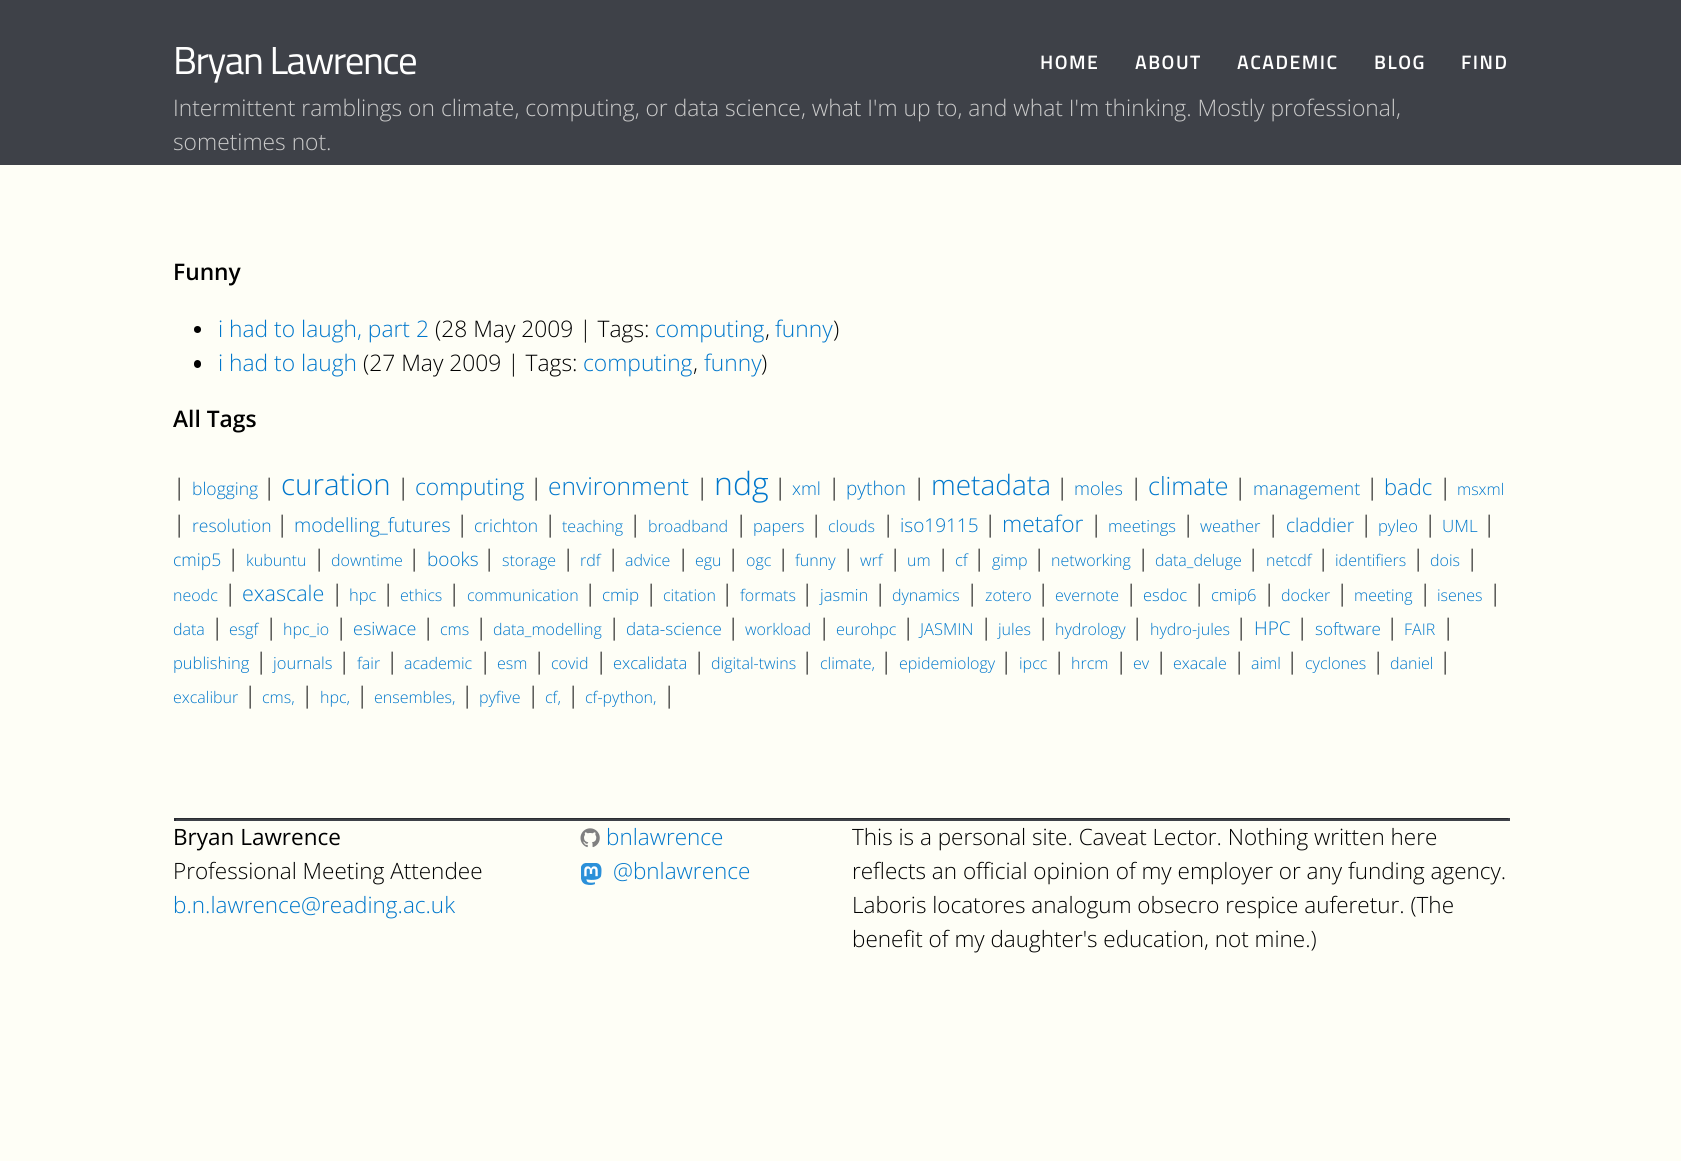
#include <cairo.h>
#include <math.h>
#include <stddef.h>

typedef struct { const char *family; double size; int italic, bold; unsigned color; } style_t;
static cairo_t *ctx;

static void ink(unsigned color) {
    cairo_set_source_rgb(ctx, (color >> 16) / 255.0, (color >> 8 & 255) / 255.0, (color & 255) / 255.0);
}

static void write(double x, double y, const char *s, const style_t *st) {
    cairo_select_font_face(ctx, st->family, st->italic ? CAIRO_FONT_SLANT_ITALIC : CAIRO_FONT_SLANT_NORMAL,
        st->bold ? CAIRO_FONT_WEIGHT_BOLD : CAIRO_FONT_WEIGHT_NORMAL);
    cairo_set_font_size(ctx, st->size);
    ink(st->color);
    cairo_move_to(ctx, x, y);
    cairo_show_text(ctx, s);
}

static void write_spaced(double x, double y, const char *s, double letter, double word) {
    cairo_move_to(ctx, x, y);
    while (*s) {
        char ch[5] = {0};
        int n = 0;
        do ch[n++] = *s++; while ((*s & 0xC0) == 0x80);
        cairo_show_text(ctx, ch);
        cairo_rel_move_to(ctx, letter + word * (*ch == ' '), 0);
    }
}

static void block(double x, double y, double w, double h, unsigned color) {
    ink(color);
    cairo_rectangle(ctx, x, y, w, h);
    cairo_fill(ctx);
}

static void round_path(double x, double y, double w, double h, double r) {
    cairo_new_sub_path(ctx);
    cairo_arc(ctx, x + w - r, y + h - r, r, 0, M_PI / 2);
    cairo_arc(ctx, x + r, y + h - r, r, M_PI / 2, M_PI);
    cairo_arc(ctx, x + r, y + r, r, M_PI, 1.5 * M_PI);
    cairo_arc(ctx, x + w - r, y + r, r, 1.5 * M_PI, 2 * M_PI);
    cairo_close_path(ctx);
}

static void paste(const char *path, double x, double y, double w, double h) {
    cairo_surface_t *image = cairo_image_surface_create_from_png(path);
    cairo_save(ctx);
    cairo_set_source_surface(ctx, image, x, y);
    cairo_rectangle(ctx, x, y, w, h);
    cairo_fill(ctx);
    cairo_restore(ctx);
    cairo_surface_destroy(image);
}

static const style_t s1 = {"Open Sans Light", 22.8, 0, 0, 0xcacaca};
static const style_t s2 = {"Open Sans SemiBold", 22.8, 0, 0, 0x000000};
static const style_t s3 = {"Open Sans Light", 22.8, 0, 0, 0x0077cc};
static const style_t s4 = {"Open Sans Light", 22.8, 0, 0, 0x000000};
static const style_t s5 = {"Open Sans Light", 17.5, 0, 0, 0x0077cc};
static const style_t s6 = {"Open Sans Light", 29.5, 0, 0, 0x0077cc};
static const style_t s7 = {"Open Sans Light", 24.5, 0, 0, 0x0077cc};
static const style_t s8 = {"Open Sans Light", 32, 0, 0, 0x0077cc};
static const style_t s9 = {"Open Sans Light", 18, 0, 0, 0x0077cc};
static const style_t s10 = {"Open Sans Light", 19, 0, 0, 0x0077cc};
static const style_t s11 = {"Open Sans Light", 28, 0, 0, 0x0077cc};
static const style_t s12 = {"Open Sans Light", 25, 0, 0, 0x0077cc};
static const style_t s13 = {"Open Sans Light", 22, 0, 0, 0x0077cc};
static const style_t s14 = {"Open Sans Light", 16, 0, 0, 0x0077cc};
static const style_t s15 = {"Open Sans Light", 19.5, 0, 0, 0x0077cc};
static const style_t s16 = {"Open Sans Light", 16.5, 0, 0, 0x0077cc};
static const style_t s17 = {"Open Sans Light", 17, 0, 0, 0x0077cc};
static const style_t s18 = {"Open Sans Light", 21.5, 0, 0, 0x0077cc};
static const style_t s19 = {"Open Sans", 22.5, 0, 0, 0x000000};
static const style_t s20 = {"Open Sans Light", 22.5, 0, 0, 0x000000};
static const style_t s21 = {"Open Sans Light", 22.5, 0, 0, 0x0077cc};

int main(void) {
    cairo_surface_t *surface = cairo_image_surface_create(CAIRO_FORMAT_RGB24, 1681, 1161);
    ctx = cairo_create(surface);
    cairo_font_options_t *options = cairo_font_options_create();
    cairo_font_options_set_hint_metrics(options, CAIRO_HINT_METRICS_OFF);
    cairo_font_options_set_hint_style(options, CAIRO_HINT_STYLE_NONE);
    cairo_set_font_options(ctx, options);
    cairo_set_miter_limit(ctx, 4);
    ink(0xfefef6);
    cairo_paint(ctx);
    block(0, 0, 1681, 165, 0x3e4148);
    cairo_select_font_face(ctx, "Titillium Web", CAIRO_FONT_SLANT_NORMAL, CAIRO_FONT_WEIGHT_NORMAL);
    cairo_set_font_size(ctx, 39);
    ink(0xffffff);
    write_spaced(173, 74, "Bryan Lawrence", -1.5, 0);
    cairo_select_font_face(ctx, "Titillium Web SemiBold", CAIRO_FONT_SLANT_NORMAL, CAIRO_FONT_WEIGHT_NORMAL);
    cairo_set_font_size(ctx, 19.5);
    write_spaced(1040, 69, "HOME", 1.5, 0);
    write_spaced(1135, 69, "ABOUT", 1.5, 0);
    write_spaced(1237, 69, "ACADEMIC", 1.5, 0);
    write_spaced(1374, 69, "BLOG", 1.5, 0);
    write_spaced(1461, 69, "FIND", 1.5, 0);
    write(173, 116, "Intermittent ramblings on climate, computing, or data science, what I'm up to, and what I'm thinking. Mostly professional,", &s1);
    write(173, 150, "sometimes not.", &s1);
    write(173, 280, "Funny", &s2);
    cairo_new_path(ctx);
    cairo_arc(ctx, 197.5, 329.5, 3.5, 0, 2 * M_PI);
    cairo_fill(ctx);
    write(218, 337, "i had to laugh, part 2", &s3);
    write(435, 337, "(28 May 2009 | Tags:", &s4);
    write(655, 337, "computing", &s3);
    write(775, 337, "funny", &s3);
    write(833, 337, ")", &s4);
    write(765, 337, ",", &s4);
    round_path(194, 360, 7, 8, 3.5);
    cairo_fill(ctx);
    write(218, 371, "i had to laugh", &s3);
    write(363, 371, "(27 May 2009 | Tags:", &s4);
    write(583, 371, "computing", &s3);
    write(704, 371, "funny", &s3);
    write(761, 371, ")", &s4);
    write(693, 371, ",", &s4);
    write(173, 427, "All Tags", &s2);
    write(173, 495, "|", &s4);
    write(192, 495, "blogging", &s5);
    write(263, 495, "|", &s4);
    write(281, 495, "curation", &s6);
    write(397, 495, "|", &s4);
    write(415, 495, "computing", &s3);
    write(530, 495, "|", &s4);
    write(548, 495, "environment", &s7);
    write(696, 495, "|", &s4);
    write(714, 495, "ndg", &s8);
    write(774, 495, "|", &s4);
    write(792, 495, "xml", &s9);
    write(828, 495, "|", &s4);
    write(846, 495, "python", &s10);
    write(913, 495, "|", &s4);
    write(931, 495, "metadata", &s11);
    write(1056, 495, "|", &s4);
    write(1074, 495, "moles", &s9);
    write(1130, 495, "|", &s4);
    write(1148, 495, "climate", &s12);
    write(1234, 495, "|", &s4);
    write(1253, 495, "management", &s9);
    write(1366, 495, "|", &s4);
    write(1384, 495, "badc", &s13);
    write(1439, 495, "|", &s4);
    write(1457, 495, "msxml", &s14);
    write(173, 532, "|", &s4);
    write(192, 532, "resolution", &s5);
    write(276, 532, "|", &s4);
    write(294, 532, "modelling_futures", &s15);
    write(456, 532, "|", &s4);
    write(474, 532, "crichton", &s5);
    write(544, 532, "|", &s4);
    write(562, 532, "teaching", &s14);
    write(629, 532, "|", &s4);
    write(648, 532, "broadband", &s14);
    write(735, 532, "|", &s4);
    write(753, 532, "papers", &s16);
    write(810, 532, "|", &s4);
    write(828, 532, "clouds", &s14);
    write(882, 532, "|", &s4);
    write(900, 532, "iso19115", &s10);
    write(984, 532, "|", &s4);
    write(1002, 532, "metafor", &s3);
    write(1090, 532, "|", &s4);
    write(1108, 532, "meetings", &s16);
    write(1182, 532, "|", &s4);
    write(1200, 532, "weather", &s16);
    write(1267, 532, "|", &s4);
    write(1286, 532, "claddier", &s10);
    write(1360, 532, "|", &s4);
    write(1378, 532, "pyleo", &s16);
    write(1424, 532, "|", &s4);
    write(1442, 532, "UML", &s17);
    write(1483, 532, "|", &s4);
    write(173, 566, "cmip5", &s5);
    write(227, 566, "|", &s4);
    write(246, 566, "kubuntu", &s14);
    write(313, 566, "|", &s4);
    write(331, 566, "downtime", &s14);
    write(408, 566, "|", &s4);
    write(427, 566, "books", &s10);
    write(483, 566, "|", &s4);
    write(502, 566, "storage", &s14);
    write(562, 566, "|", &s4);
    write(580, 566, "rdf", &s14);
    write(607, 566, "|", &s4);
    write(625, 566, "advice", &s14);
    write(677, 566, "|", &s4);
    write(695, 566, "egu", &s14);
    write(727, 566, "|", &s4);
    write(746, 566, "ogc", &s14);
    write(777, 566, "|", &s4);
    write(795, 566, "funny", &s14);
    write(842, 566, "|", &s4);
    write(860, 566, "wrf", &s14);
    write(889, 566, "|", &s4);
    write(907, 566, "um", &s14);
    write(937, 566, "|", &s4);
    write(955, 566, "cf", &s16);
    write(973, 566, "|", &s4);
    write(992, 566, "gimp", &s14);
    write(1033, 566, "|", &s4);
    write(1051, 566, "networking", &s14);
    write(1137, 566, "|", &s4);
    write(1155, 566, "data_deluge", &s14);
    write(1247, 566, "|", &s4);
    write(1266, 566, "netcdf", &s14);
    write(1317, 566, "|", &s4);
    write(1335, 566, "identifiers", &s14);
    write(1412, 566, "|", &s4);
    write(1430, 566, "dois", &s14);
    write(1466, 566, "|", &s4);
    write(173, 601, "neodc", &s14);
    write(224, 601, "|", &s4);
    write(242, 601, "exascale", &s18);
    write(331, 601, "|", &s4);
    write(349, 601, "hpc", &s16);
    write(382, 601, "|", &s4);
    write(400, 601, "ethics", &s14);
    write(448, 601, "|", &s4);
    write(467, 601, "communication", &s14);
    write(584, 601, "|", &s4);
    write(602, 601, "cmip", &s17);
    write(645, 601, "|", &s4);
    write(663, 601, "citation", &s14);
    write(721, 601, "|", &s4);
    write(740, 601, "formats", &s14);
    write(801, 601, "|", &s4);
    write(820, 601, "jasmin", &s16);
    write(874, 601, "|", &s4);
    write(892, 601, "dynamics", &s14);
    write(966, 601, "|", &s4);
    write(985, 601, "zotero", &s14);
    write(1037, 601, "|", &s4);
    write(1055, 601, "evernote", &s14);
    write(1125, 601, "|", &s4);
    write(1143, 601, "esdoc", &s16);
    write(1193, 601, "|", &s4);
    write(1211, 601, "cmip6", &s16);
    write(1263, 601, "|", &s4);
    write(1281, 601, "docker", &s14);
    write(1336, 601, "|", &s4);
    write(1354, 601, "meeting", &s14);
    write(1419, 601, "|", &s4);
    write(1437, 601, "isenes", &s14);
    write(1489, 601, "|", &s4);
    write(173, 635, "data", &s14);
    write(211, 635, "|", &s4);
    write(229, 635, "esgf", &s14);
    write(265, 635, "|", &s4);
    write(283, 635, "hpc_io", &s14);
    write(335, 635, "|", &s4);
    write(353, 635, "esiwace", &s9);
    write(422, 635, "|", &s4);
    write(440, 635, "cms", &s14);
    write(475, 635, "|", &s4);
    write(493, 635, "data_modelling", &s14);
    write(608, 635, "|", &s4);
    write(626, 635, "data-science", &s17);
    write(727, 635, "|", &s4);
    write(745, 635, "workload", &s14);
    write(818, 635, "|", &s4);
    write(836, 635, "eurohpc", &s14);
    write(902, 635, "|", &s4);
    write(920, 635, "JASMIN", &s16);
    write(980, 635, "|", &s4);
    write(998, 635, "jules", &s14);
    write(1037, 635, "|", &s4);
    write(1055, 635, "hydrology", &s14);
    write(1131, 635, "|", &s4);
    write(1150, 635, "hydro-jules", &s14);
    write(1235, 635, "|", &s4);
    write(1254, 635, "HPC", &s10);
    write(1296, 635, "|", &s4);
    write(1315, 635, "software", &s17);
    write(1386, 635, "|", &s4);
    write(1404, 635, "FAIR", &s14);
    write(1442, 635, "|", &s4);
    write(173, 669, "publishing", &s16);
    write(255, 669, "|", &s4);
    write(273, 669, "journals", &s16);
    write(338, 669, "|", &s4);
    write(357, 669, "fair", &s14);
    write(386, 669, "|", &s4);
    write(404, 669, "academic", &s14);
    write(479, 669, "|", &s4);
    write(497, 669, "esm", &s14);
    write(533, 669, "|", &s4);
    write(551, 669, "covid", &s14);
    write(595, 669, "|", &s4);
    write(613, 669, "excalidata", &s16);
    write(693, 669, "|", &s4);
    write(711, 669, "digital-twins", &s14);
    write(801, 669, "|", &s4);
    write(820, 669, "climate,", &s14);
    write(880, 669, "|", &s4);
    write(899, 669, "epidemiology", &s14);
    write(1000, 669, "|", &s4);
    write(1019, 669, "ipcc", &s14);
    write(1053, 669, "|", &s4);
    write(1071, 669, "hrcm", &s14);
    write(1115, 669, "|", &s4);
    write(1133, 669, "ev", &s14);
    write(1155, 669, "|", &s4);
    write(1173, 669, "exacale", &s14);
    write(1233, 669, "|", &s4);
    write(1251, 669, "aiml", &s14);
    write(1286, 669, "|", &s4);
    write(1305, 669, "cyclones", &s14);
    write(1372, 669, "|", &s4);
    write(1390, 669, "daniel", &s14);
    write(1439, 669, "|", &s4);
    write(173, 703, "excalibur", &s14);
    write(244, 703, "|", &s4);
    write(262, 703, "cms,", &s14);
    write(301, 703, "|", &s4);
    write(320, 703, "hpc,", &s14);
    write(356, 703, "|", &s4);
    write(374, 703, "ensembles,", &s14);
    write(461, 703, "|", &s4);
    write(479, 703, "pyfive", &s14);
    write(527, 703, "|", &s4);
    write(545, 703, "cf,", &s14);
    write(567, 703, "|", &s4);
    write(585, 703, "cf-python,", &s14);
    write(663, 703, "|", &s4);
    block(174, 818, 1335, 1, 0x292b30);
    block(1508, 818, 2, 3, 0x3e4148);
    block(174, 819, 1335, 2, 0x3e4148);
    block(174, 818, 2, 3, 0x292b30);
    write(173, 845, "Bryan Lawrence", &s19);
    write(173, 879, "Professional Meeting Attendee", &s20);
    write(173, 913, "b.n.lawrence@reading.ac.uk", &s21);
    paste("pic1.png", 580, 828, 20, 20);
    write(606, 845, "bnlawrence", &s21);
    paste("pic2.png", 581, 863, 21, 22);
    write(613, 879, "@bnlawrence", &s21);
    write(852, 845, "This is a personal site. Caveat Lector. Nothing written here", &s20);
    write(852, 879, "reflects an official opinion of my employer or any funding agency.", &s20);
    write(852, 913, "Laboris locatores analogum obsecro respice auferetur. (The", &s20);
    write(852, 947, "benefit of my daughter's education, not mine.)", &s20);
    cairo_surface_write_to_png(surface, "screenshot.png");
    cairo_font_options_destroy(options);
    cairo_destroy(ctx);
    cairo_surface_destroy(surface);
    return 0;
}
